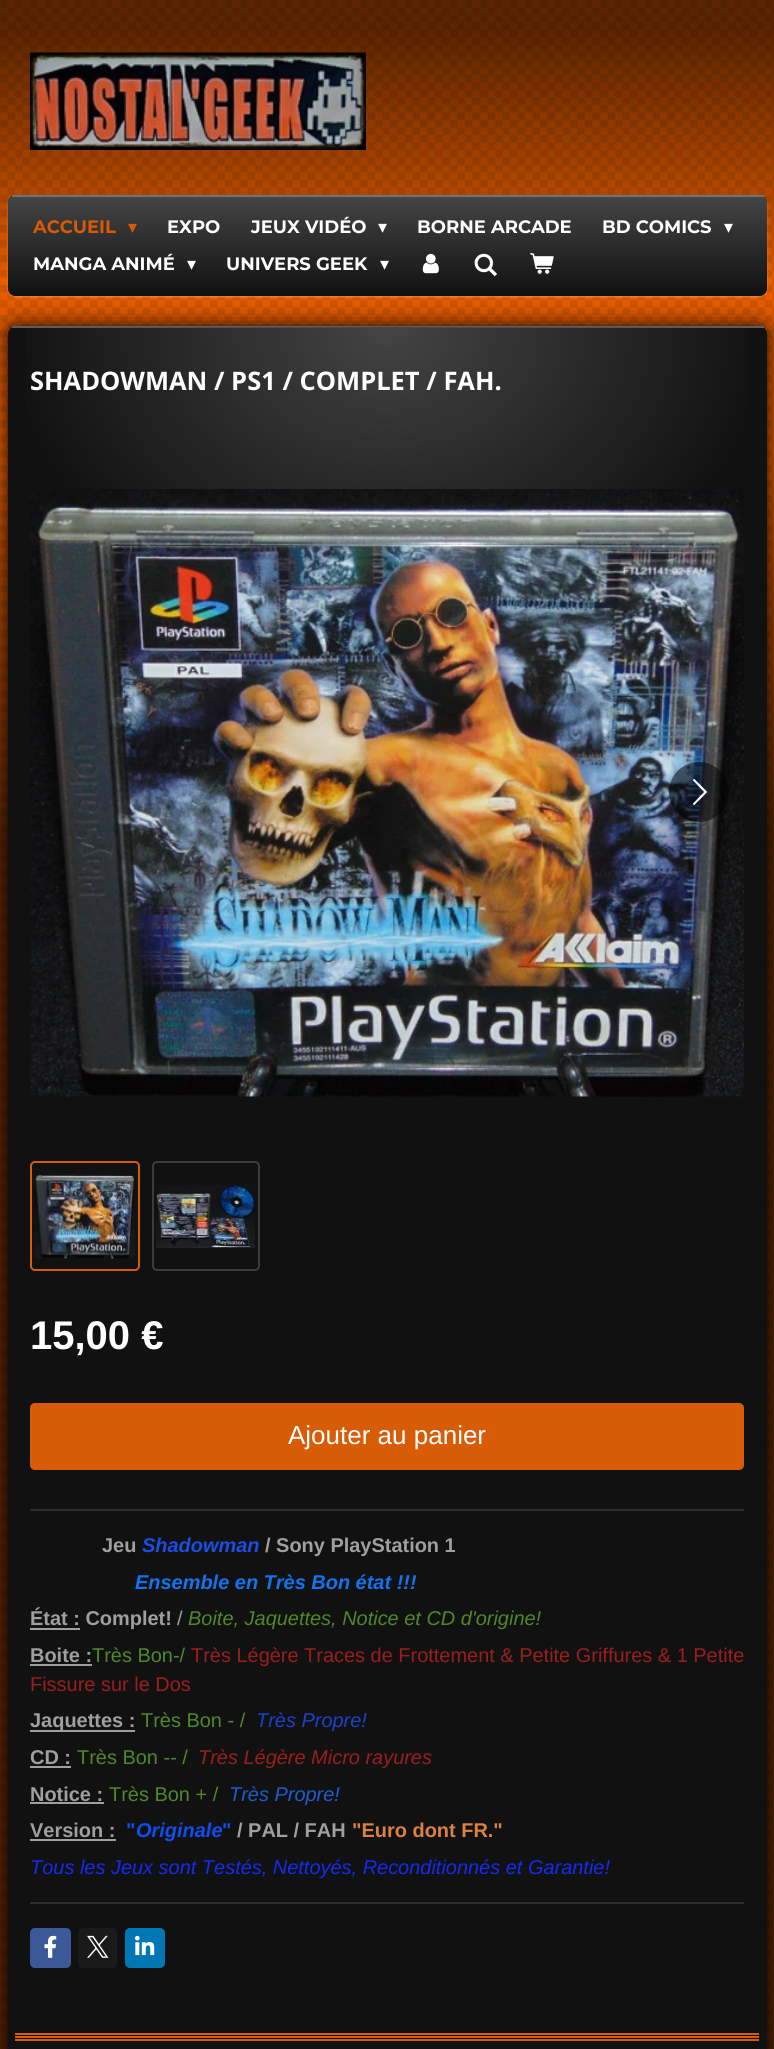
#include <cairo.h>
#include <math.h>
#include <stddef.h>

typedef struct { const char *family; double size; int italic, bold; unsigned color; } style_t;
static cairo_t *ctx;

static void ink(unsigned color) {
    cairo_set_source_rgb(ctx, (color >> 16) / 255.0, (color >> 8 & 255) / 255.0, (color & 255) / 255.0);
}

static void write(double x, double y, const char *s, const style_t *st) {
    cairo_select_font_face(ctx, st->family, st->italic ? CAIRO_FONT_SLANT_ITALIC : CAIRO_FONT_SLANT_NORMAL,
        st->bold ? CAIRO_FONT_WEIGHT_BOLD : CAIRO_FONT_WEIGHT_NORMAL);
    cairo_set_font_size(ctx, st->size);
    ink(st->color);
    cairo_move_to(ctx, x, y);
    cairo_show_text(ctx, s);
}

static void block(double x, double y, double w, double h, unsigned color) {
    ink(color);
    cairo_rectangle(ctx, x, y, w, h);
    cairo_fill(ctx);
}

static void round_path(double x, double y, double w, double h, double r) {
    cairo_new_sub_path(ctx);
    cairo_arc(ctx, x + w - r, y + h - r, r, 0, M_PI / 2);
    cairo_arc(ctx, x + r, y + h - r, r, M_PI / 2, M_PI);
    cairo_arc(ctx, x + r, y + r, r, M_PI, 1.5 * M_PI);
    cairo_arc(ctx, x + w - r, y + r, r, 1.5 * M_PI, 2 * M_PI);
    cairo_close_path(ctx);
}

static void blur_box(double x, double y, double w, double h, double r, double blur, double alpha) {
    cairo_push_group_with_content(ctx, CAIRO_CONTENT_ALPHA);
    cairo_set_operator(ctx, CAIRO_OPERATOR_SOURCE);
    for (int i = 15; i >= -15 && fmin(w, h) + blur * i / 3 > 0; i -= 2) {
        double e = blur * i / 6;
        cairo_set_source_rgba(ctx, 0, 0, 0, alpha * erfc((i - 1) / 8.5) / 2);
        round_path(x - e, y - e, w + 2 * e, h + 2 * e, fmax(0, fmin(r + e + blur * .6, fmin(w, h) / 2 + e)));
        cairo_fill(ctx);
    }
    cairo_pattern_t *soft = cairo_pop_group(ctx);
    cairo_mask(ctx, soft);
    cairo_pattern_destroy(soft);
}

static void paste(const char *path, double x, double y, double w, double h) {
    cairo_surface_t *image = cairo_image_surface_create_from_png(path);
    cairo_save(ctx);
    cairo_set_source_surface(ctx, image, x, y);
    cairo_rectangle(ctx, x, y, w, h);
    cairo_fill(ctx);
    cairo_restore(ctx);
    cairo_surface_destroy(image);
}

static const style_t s1 = {"Montserrat", 18, 0, 1, 0xd85b06};
static const style_t s2 = {"DejaVu Sans", 18, 0, 0, 0xd85b06};
static const style_t s3 = {"Montserrat", 18, 0, 1, 0xffffff};
static const style_t s4 = {"DejaVu Sans", 18, 0, 0, 0xffffff};
static const style_t s5 = {"Open Sans", 25.5, 0, 1, 0xffffff};
static const style_t s6 = {"Liberation Sans", 40, 0, 1, 0xffffff};
static const style_t s7 = {"Liberation Sans", 26, 0, 0, 0xffffff};
static const style_t s8 = {"Liberation Sans", 19.95, 0, 1, 0x9f9f9f};
static const style_t s9 = {"Liberation Sans", 19.95, 1, 1, 0x1a4de4};
static const style_t s10 = {"Liberation Sans", 19.95, 1, 1, 0x1273ef};
static const style_t s11 = {"Liberation Sans", 19.95, 0, 0, 0x9f9f9f};
static const style_t s12 = {"Liberation Sans", 19.95, 1, 0, 0x508729};
static const style_t s13 = {"Liberation Sans", 19.95, 0, 0, 0x508729};
static const style_t s14 = {"Liberation Sans", 19.95, 0, 0, 0x9a1e1e};
static const style_t s15 = {"Liberation Sans", 19.95, 1, 0, 0x1c41cc};
static const style_t s16 = {"Liberation Sans", 19.95, 1, 0, 0x9a1e1e};
static const style_t s17 = {"Liberation Sans", 19.95, 1, 0, 0x1c5dd0};
static const style_t s18 = {"Liberation Sans", 19.95, 0, 1, 0x0e4eee};
static const style_t s19 = {"Liberation Sans", 19.95, 1, 1, 0x0e4eee};
static const style_t s20 = {"Liberation Sans", 19.95, 0, 1, 0xda8044};
static const style_t s21 = {"Liberation Sans", 19.95, 1, 0, 0x142aef};

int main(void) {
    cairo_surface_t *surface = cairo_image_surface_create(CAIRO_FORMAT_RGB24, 774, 2049);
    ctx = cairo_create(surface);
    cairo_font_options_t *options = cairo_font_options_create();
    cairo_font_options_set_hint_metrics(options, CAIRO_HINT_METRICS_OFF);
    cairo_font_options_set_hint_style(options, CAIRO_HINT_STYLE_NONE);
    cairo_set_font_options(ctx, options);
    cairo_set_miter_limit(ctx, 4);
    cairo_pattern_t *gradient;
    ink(0xe75c00);
    cairo_paint(ctx);
    paste("pic1.png", 0, 0, 774, 2049);
    cairo_set_source_rgba(ctx, 0, 0, 0, 0.6);
    cairo_rectangle(ctx, 0, 0, 774, 30);
    cairo_fill(ctx);
    gradient = cairo_pattern_create_linear(387, 285, 387, 30);
    cairo_pattern_add_color_stop_rgba(gradient, 0, 0, 0, 0, 0);
    cairo_pattern_add_color_stop_rgba(gradient, 1, 0, 0, 0, 0.6);
    cairo_set_source(ctx, gradient);
    cairo_pattern_destroy(gradient);
    cairo_rectangle(ctx, 0, 30, 774, 246);
    cairo_fill(ctx);
    paste("pic2.png", 30, 52, 336, 98);
    ink(0xffffff);
    blur_box(8, 197, 759, 100, 8, 1, 0.3);
    ink(0x111111);
    round_path(8, 195, 759, 101, 8);
    cairo_fill(ctx);
    cairo_save(ctx);
    round_path(8, 195, 759, 101, 8);
    cairo_clip(ctx);
    gradient = cairo_pattern_create_linear(387, 197, 387, 98);
    cairo_pattern_add_color_stop_rgba(gradient, 0, 0.067, 0.067, 0.067, 1);
    cairo_pattern_add_color_stop_rgba(gradient, 1, 0.267, 0.267, 0.267, 1);
    cairo_set_source(ctx, gradient);
    cairo_pattern_destroy(gradient);
    cairo_rectangle(ctx, 8, 196, 759, 1);
    cairo_fill(ctx);
    gradient = cairo_pattern_create_linear(387, 296, 387, 197);
    cairo_pattern_add_color_stop_rgba(gradient, 0, 0.067, 0.067, 0.067, 1);
    cairo_pattern_add_color_stop_rgba(gradient, 1, 0.267, 0.267, 0.267, 1);
    cairo_set_source(ctx, gradient);
    cairo_pattern_destroy(gradient);
    cairo_new_path(ctx);
    cairo_move_to(ctx, 8, 197);
    cairo_line_to(ctx, 767, 197);
    cairo_line_to(ctx, 767, 288);
    cairo_curve_to(ctx, 767, 292.5, 763.5, 296, 759, 296);
    cairo_line_to(ctx, 16, 296);
    cairo_curve_to(ctx, 11.5, 296, 8, 292.5, 8, 288);
    cairo_close_path(ctx);
    cairo_fill(ctx);
    cairo_restore(ctx);
    block(12, 195, 752, 2, 0x727272);
    write(33, 233, "ACCUEIL", &s1);
    write(128, 233, "▾", &s2);
    write(167, 233, "EXPO", &s3);
    write(251, 233, "JEUX VIDÉO", &s3);
    write(378, 233, "▾", &s4);
    write(417, 233, "BORNE ARCADE", &s3);
    write(602, 233, "BD COMICS", &s3);
    write(724, 233, "▾", &s4);
    write(33, 270, "MANGA ANIMÉ", &s3);
    write(187, 270, "▾", &s4);
    write(226, 270, "UNIVERS GEEK", &s3);
    write(380, 270, "▾", &s4);
    paste("pic3.png", 422, 253, 17, 21);
    paste("pic4.png", 474, 253, 23, 24);
    paste("pic5.png", 530, 253, 24, 21);
    gradient = cairo_pattern_create_linear(387, 840, 387, 465);
    cairo_pattern_add_color_stop_rgba(gradient, 0, 0, 0, 0, 0.6);
    cairo_pattern_add_color_stop_rgba(gradient, 1, 0, 0, 0, 0);
    cairo_set_source(ctx, gradient);
    cairo_pattern_destroy(gradient);
    cairo_rectangle(ctx, 0, 478, 774, 362);
    cairo_fill(ctx);
    cairo_set_source_rgba(ctx, 0, 0, 0, 0.6);
    cairo_rectangle(ctx, 0, 840, 774, 1209);
    cairo_fill(ctx);
    ink(0x000000);
    blur_box(8, 326, 759, 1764, 8, 11, 1);
    ink(0x111111);
    round_path(8, 326, 759, 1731, 8);
    cairo_fill(ctx);
    block(12, 326, 752, 2, 0x5e5e5e);
    gradient = cairo_pattern_create_radial(0, 0, 0, 0, 0, 1);
    cairo_pattern_set_matrix(gradient, &(cairo_matrix_t){1.0 / 380, 0, 0, 1.0 / 300, -1.0 * 387 / 380, -1.0 * 327 / 300});
    cairo_pattern_add_color_stop_rgba(gradient, 0, 0.267, 0.267, 0.267, 1);
    cairo_pattern_add_color_stop_rgba(gradient, 1, 0.267, 0.267, 0.267, 0);
    cairo_set_source(ctx, gradient);
    cairo_pattern_destroy(gradient);
    cairo_rectangle(ctx, 26, 327, 722, 162);
    cairo_fill(ctx);
    write(30, 390, "SHADOWMAN / PS1 / COMPLET / FAH.", &s5);
    paste("pic6.png", 30, 489, 714, 608);
    cairo_set_source_rgba(ctx, 0, 0, 0, 0.5);
    cairo_arc(ctx, 699, 792, 30, 0, 2 * M_PI);
    cairo_fill(ctx);
    paste("pic7.png", 693, 779, 14, 26);
    round_path(31, 1162, 108, 108, 4);
    ink(0xd85b06);
    cairo_stroke(ctx);
    paste("pic8.png", 34, 1173, 101, 86);
    round_path(153, 1162, 106, 108, 4);
    ink(0x3c3c3c);
    cairo_stroke(ctx);
    paste("pic9.png", 156, 1185, 99, 63);
    write(30, 1349, "15,00 €", &s6);
    ink(0xd85b06);
    round_path(30, 1403, 714, 67, 5);
    cairo_fill(ctx);
    write(288, 1444, "Ajouter au panier", &s7);
    block(30, 1509, 714, 2, 0x2d2d2d);
    write(102, 1552, "Jeu", &s8);
    write(142, 1552, "Shadowman", &s9);
    write(265, 1552, "/ Sony PlayStation 1", &s8);
    write(135, 1589, "Ensemble en Très Bon état !!!", &s10);
    block(30, 1628, 50, 2, 0x9f9f9f);
    write(30, 1625, "État : Complet!", &s8);
    write(177, 1625, "/", &s11);
    write(188, 1625, "Boite, Jaquettes, Notice et CD d'origine!", &s12);
    write(30, 1662, "Boite :", &s8);
    block(30, 1664, 62, 2, 0x9f9f9f);
    write(92, 1662, "Très Bon-/", &s13);
    write(191, 1662, "Très Légère Traces de Frottement & Petite Griffures & 1 Petite", &s14);
    write(30, 1691, "Fissure sur le Dos", &s14);
    block(30, 1730, 105, 2, 0x9f9f9f);
    write(30, 1727, "Jaquettes :", &s8);
    write(141, 1727, "Très Bon - /", &s13);
    write(256, 1727, "Très Propre!", &s15);
    write(30, 1764, "CD :", &s8);
    block(30, 1766, 41, 2, 0x9f9f9f);
    write(77, 1764, "Très Bon -- /", &s13);
    write(198, 1764, "Très Légère Micro rayures", &s16);
    write(30, 1801, "Notice :", &s8);
    block(30, 1802, 74, 2, 0x9f9f9f);
    write(109, 1801, "Très Bon + /", &s13);
    write(229, 1801, "Très Propre!", &s17);
    write(30, 1837, "Version :", &s8);
    block(30, 1839, 86, 2, 0x9f9f9f);
    write(126, 1837, "\"", &s18);
    write(136, 1837, "Originale", &s19);
    write(222, 1837, "\"", &s18);
    write(237, 1837, "/ PAL / FAH", &s8);
    write(352, 1837, "\"Euro dont FR.\"", &s20);
    write(30, 1874, "Tous les Jeux sont Testés, Nettoyés, Reconditionnés et Garantie!", &s21);
    block(30, 1902, 714, 2, 0x2d2d2d);
    ink(0x3b5998);
    round_path(30, 1928, 41, 40, 5);
    cairo_fill(ctx);
    paste("pic10.png", 44, 1935, 13, 23);
    ink(0x1a1a1a);
    round_path(78, 1928, 39, 40, 5);
    cairo_fill(ctx);
    paste("pic11.png", 87, 1935, 22, 23);
    ink(0x0077b5);
    round_path(125, 1928, 40, 40, 5);
    cairo_fill(ctx);
    paste("pic12.png", 135, 1935, 20, 21);
    block(15, 2033, 744, 2, 0xd85b06);
    block(15, 2036, 744, 2, 0xd85b06);
    block(15, 2039, 744, 2, 0xd85b06);
    cairo_surface_write_to_png(surface, "screenshot.png");
    cairo_font_options_destroy(options);
    cairo_destroy(ctx);
    cairo_surface_destroy(surface);
    return 0;
}
